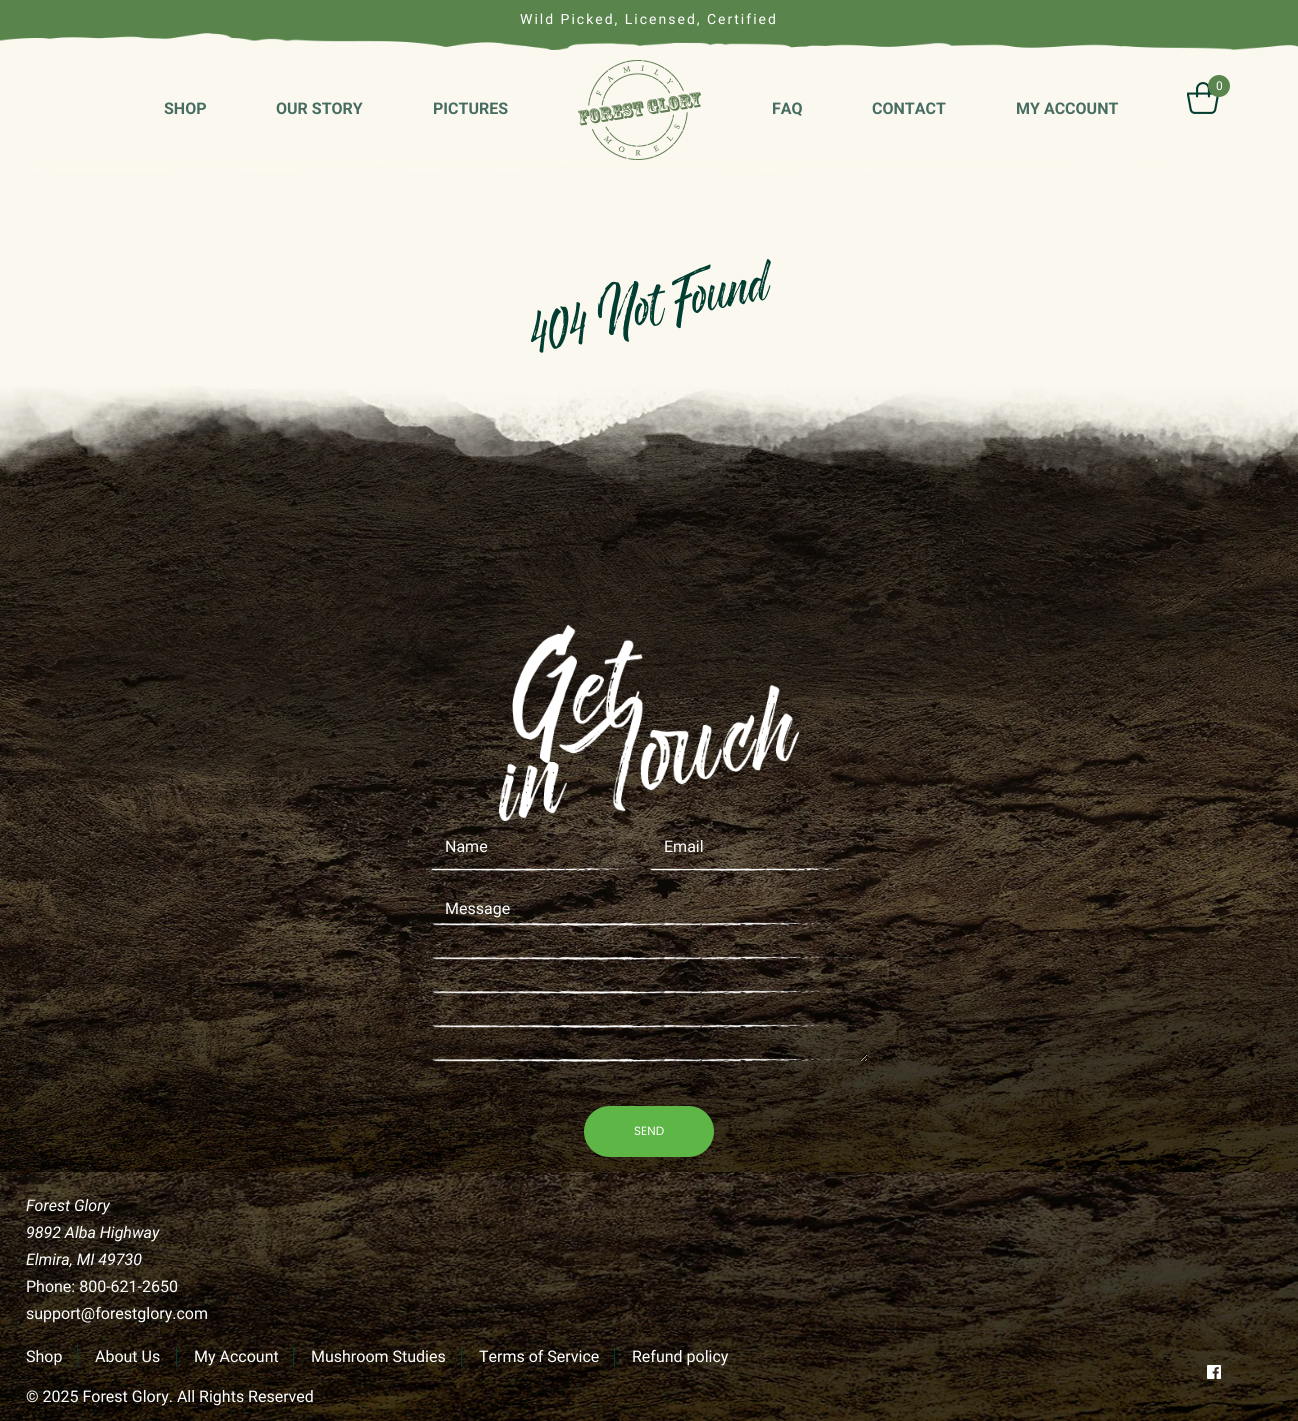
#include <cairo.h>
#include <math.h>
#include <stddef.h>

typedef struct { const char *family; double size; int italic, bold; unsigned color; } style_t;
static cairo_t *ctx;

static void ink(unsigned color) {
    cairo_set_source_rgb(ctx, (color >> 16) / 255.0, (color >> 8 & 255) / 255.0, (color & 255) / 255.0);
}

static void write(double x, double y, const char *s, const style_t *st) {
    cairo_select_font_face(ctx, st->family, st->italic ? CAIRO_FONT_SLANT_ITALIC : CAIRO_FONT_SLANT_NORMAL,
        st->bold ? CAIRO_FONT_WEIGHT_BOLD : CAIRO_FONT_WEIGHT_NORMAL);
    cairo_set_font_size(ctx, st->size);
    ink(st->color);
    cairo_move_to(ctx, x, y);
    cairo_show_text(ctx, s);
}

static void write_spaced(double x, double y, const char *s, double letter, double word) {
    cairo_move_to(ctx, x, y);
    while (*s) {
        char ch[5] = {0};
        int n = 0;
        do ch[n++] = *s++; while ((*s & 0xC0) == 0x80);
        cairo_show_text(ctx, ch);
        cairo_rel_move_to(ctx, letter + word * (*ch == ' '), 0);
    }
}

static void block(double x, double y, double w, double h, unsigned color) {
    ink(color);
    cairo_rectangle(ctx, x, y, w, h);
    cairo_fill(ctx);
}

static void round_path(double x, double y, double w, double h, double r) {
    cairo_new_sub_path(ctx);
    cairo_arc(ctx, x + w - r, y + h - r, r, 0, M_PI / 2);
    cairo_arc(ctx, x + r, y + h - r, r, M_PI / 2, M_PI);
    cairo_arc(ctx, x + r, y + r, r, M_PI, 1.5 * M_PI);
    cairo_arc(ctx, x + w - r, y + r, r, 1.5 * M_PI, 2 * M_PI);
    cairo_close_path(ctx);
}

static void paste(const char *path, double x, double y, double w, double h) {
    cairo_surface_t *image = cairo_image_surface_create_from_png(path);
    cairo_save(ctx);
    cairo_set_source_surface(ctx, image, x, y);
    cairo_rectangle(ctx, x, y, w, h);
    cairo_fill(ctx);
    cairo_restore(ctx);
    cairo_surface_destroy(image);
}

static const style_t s1 = {"Roboto", 12, 0, 0, 0xffffff};
static const style_t s2 = {"Roboto", 16, 0, 1, 0x476c61};
static const style_t s3 = {"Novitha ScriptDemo", 75, 0, 0, 0x013d31};
static const style_t s4 = {"Roboto", 16, 0, 0, 0xffffff};
static const style_t s5 = {"Poppins", 12, 0, 0, 0xffffff};
static const style_t s6 = {"Roboto", 16, 1, 0, 0xffffff};

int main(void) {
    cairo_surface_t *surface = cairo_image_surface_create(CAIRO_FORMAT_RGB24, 1298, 1421);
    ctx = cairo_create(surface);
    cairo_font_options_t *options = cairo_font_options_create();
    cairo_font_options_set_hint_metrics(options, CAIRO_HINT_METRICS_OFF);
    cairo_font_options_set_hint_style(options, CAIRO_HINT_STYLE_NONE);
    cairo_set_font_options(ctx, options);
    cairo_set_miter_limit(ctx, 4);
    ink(0xfbf9ef);
    cairo_paint(ctx);
    paste("pic1.png", 0, 0, 1298, 50);
    cairo_select_font_face(ctx, "Roboto", CAIRO_FONT_SLANT_NORMAL, CAIRO_FONT_WEIGHT_NORMAL);
    cairo_set_font_size(ctx, 14);
    ink(0xffffff);
    write_spaced(520, 24, "Wild Picked, Licensed, Certified", 2, 0);
    paste("pic2.png", 33, 161, 1169, 10);
    paste("pic3.png", 1187, 82, 32, 32);
    ink(0x5a854e);
    cairo_arc(ctx, 1219, 86, 11, 0, 2 * M_PI);
    cairo_fill(ctx);
    write(1216, 90, "0", &s1);
    write(164, 114, "SHOP", &s2);
    write(276, 114, "OUR STORY", &s2);
    write(433, 114, "PICTURES", &s2);
    paste("pic4.png", 578, 60, 123, 100);
    write(772, 114, "FAQ", &s2);
    write(872, 114, "CONTACT", &s2);
    write(1016, 114, "MY ACCOUNT", &s2);
    cairo_save(ctx);
    cairo_translate(ctx, 534, 348);
    cairo_rotate(ctx, -12 * M_PI / 180);
    write(0, 0, "404 Not Found", &s3);
    cairo_restore(ctx);
    paste("pic5.png", 0, 389, 1298, 1032);
    paste("pic6.png", 0, 386, 1298, 786);
    paste("pic7.png", 499, 625, 300, 196);
    paste("pic8.png", 430, 868, 218, 3);
    write(445, 852, "Name", &s4);
    paste("pic9.png", 649, 868, 219, 3);
    write(664, 852, "Email", &s4);
    paste("pic10.png", 430, 922, 437, 140);
    write(445, 914, "Message", &s4);
    ink(0x5eb646);
    round_path(584, 1106, 130, 51, 25.5);
    cairo_fill(ctx);
    write(634, 1135, "SEND", &s5);
    write(26, 1211, "Forest Glory", &s6);
    write(26, 1238, "9892 Alba Highway", &s6);
    write(26, 1265, "Elmira, MI 49730", &s6);
    write(26, 1292, "Phone: 800-621-2650", &s4);
    write(26, 1319, "support@forestglory.com", &s4);
    block(77, 1347, 1, 20, 0x013d31);
    write(26, 1362, "Shop", &s4);
    block(176, 1347, 1, 20, 0x013d31);
    write(95, 1362, "About Us", &s4);
    block(293, 1347, 1, 20, 0x013d31);
    write(194, 1362, "My Account", &s4);
    block(461, 1347, 1, 20, 0x013d31);
    write(311, 1362, "Mushroom Studies", &s4);
    block(614, 1347, 1, 20, 0x013d31);
    write(479, 1362, "Terms of Service", &s4);
    write(632, 1362, "Refund policy", &s4);
    paste("pic11.png", 1207, 1365, 14, 14);
    write(26, 1402, "© 2025 Forest Glory. All Rights Reserved", &s4);
    cairo_surface_write_to_png(surface, "screenshot.png");
    cairo_font_options_destroy(options);
    cairo_destroy(ctx);
    cairo_surface_destroy(surface);
    return 0;
}
